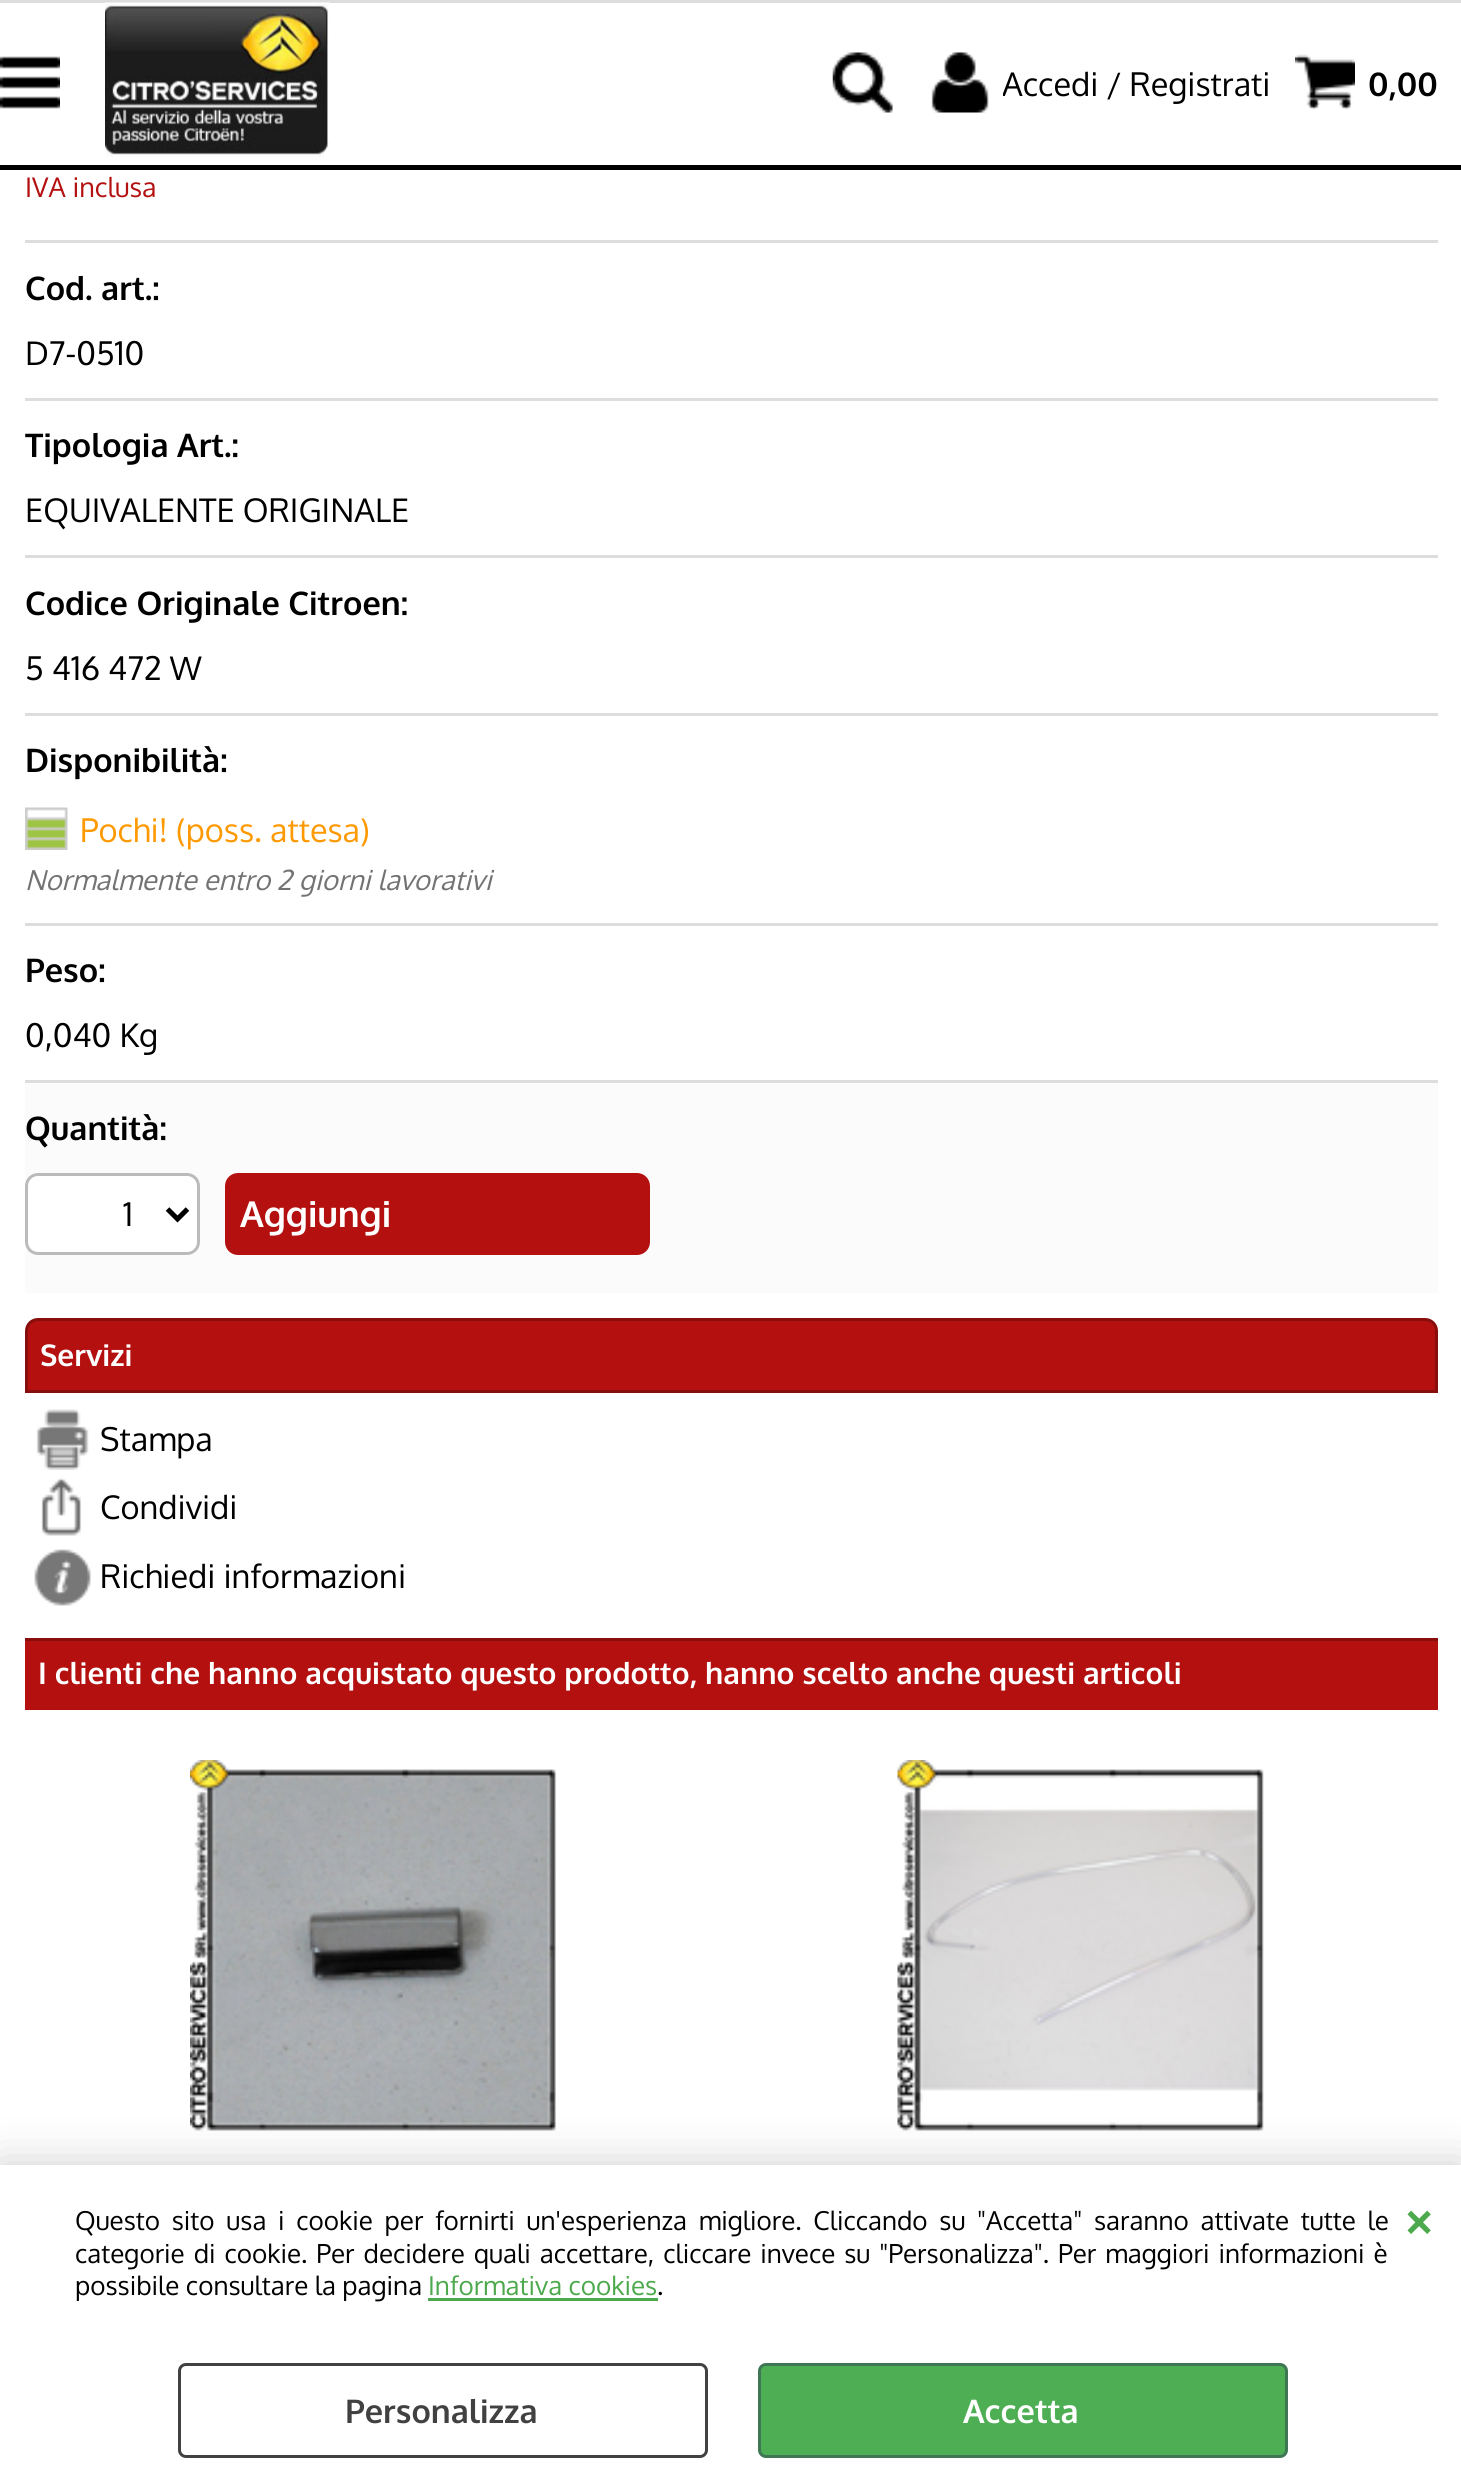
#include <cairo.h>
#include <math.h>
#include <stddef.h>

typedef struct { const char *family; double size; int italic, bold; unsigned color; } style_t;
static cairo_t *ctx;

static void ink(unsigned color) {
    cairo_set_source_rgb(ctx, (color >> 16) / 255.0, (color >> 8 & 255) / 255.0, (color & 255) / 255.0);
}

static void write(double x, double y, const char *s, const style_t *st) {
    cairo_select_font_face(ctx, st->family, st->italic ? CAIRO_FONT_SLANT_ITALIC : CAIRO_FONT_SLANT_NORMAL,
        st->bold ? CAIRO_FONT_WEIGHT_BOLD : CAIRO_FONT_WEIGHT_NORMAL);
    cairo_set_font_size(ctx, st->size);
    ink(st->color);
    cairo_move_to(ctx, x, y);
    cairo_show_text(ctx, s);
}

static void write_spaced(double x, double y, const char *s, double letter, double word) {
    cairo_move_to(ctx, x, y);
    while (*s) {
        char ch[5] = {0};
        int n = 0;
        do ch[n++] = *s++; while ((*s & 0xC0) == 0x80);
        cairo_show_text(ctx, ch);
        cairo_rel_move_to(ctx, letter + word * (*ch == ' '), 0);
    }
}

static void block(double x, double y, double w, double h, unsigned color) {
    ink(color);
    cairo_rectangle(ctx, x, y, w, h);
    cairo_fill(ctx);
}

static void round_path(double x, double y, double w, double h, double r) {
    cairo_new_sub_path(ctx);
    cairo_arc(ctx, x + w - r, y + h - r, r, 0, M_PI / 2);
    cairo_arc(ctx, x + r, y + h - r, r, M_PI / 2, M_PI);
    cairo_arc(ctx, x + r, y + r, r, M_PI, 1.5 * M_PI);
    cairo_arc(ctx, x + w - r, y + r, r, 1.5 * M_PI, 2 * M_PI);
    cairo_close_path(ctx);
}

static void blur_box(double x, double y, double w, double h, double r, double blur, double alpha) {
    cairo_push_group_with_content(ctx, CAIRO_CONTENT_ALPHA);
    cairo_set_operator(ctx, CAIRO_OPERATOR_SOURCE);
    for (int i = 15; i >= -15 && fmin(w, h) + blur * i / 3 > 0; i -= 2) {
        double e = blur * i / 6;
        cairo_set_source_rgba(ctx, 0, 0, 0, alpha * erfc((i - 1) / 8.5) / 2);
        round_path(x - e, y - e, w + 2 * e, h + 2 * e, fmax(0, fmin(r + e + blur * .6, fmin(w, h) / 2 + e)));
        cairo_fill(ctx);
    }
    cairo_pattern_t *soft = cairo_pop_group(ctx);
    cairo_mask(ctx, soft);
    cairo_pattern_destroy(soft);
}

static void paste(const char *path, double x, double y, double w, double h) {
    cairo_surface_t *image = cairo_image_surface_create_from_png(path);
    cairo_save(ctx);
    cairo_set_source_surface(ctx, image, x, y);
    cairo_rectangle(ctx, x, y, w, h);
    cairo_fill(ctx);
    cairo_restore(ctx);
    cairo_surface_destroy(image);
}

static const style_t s1 = {"Oxygen", 32.5, 0, 0, 0x000000};
static const style_t s2 = {"Oxygen", 32.5, 0, 1, 0x000000};
static const style_t s3 = {"Oxygen", 27, 0, 0, 0xb51010};
static const style_t s4 = {"Oxygen", 32.5, 0, 0, 0xff9900};
static const style_t s5 = {"Oxygen", 27.5, 1, 0, 0x737373};
static const style_t s6 = {"Oxygen", 35.75, 0, 1, 0xffffff};
static const style_t s7 = {"Oxygen", 29.9, 0, 1, 0xffffff};
static const style_t s8 = {"Oxygen", 26, 0, 0, 0x000000};
static const style_t s9 = {"Oxygen", 26, 0, 0, 0x4da94d};
static const style_t s10 = {"Oxygen", 55, 0, 1, 0x4da94d};
static const style_t s11 = {"Oxygen", 32.5, 0, 1, 0x424141};
static const style_t s12 = {"Oxygen", 32.5, 0, 1, 0xffffff};

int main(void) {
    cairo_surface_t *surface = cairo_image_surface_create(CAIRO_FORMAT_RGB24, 1461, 2482);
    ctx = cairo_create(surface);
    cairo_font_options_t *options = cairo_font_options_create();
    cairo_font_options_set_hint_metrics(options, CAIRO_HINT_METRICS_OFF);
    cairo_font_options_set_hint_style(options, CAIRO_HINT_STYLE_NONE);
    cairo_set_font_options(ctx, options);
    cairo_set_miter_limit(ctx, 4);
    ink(0xffffff);
    cairo_paint(ctx);
    block(0, 0, 1461, 3, 0xdddddd);
    block(0, 165, 1461, 5, 0x000000);
    paste("pic1.png", 0, 56, 60, 53);
    paste("pic2.png", 105, 2, 225, 156);
    paste("pic3.png", 832, 52, 61, 61);
    paste("pic4.png", 931, 52, 58, 61);
    cairo_save(ctx);
    cairo_rectangle(ctx, 1003, 38, 267, 90);
    cairo_clip(ctx);
    write(1002, 96, "Accedi / Registrati", &s1);
    cairo_restore(ctx);
    paste("pic5.png", 1295, 54, 60, 56);
    write(1368, 96, "0,00", &s2);
    write(25, 197, "IVA inclusa", &s3);
    block(25, 240, 1413, 3, 0xdddddd);
    write(25, 300, "Cod. art.:", &s2);
    write(25, 365, "D7-0510", &s1);
    block(25, 398, 1413, 3, 0xdddddd);
    write(25, 457, "Tipologia Art.:", &s2);
    write(25, 522, "EQUIVALENTE ORIGINALE", &s1);
    block(25, 555, 1413, 3, 0xdddddd);
    write(25, 615, "Codice Originale Citroen:", &s2);
    write(25, 680, "5 416 472 W", &s1);
    block(25, 713, 1413, 3, 0xdddddd);
    write(25, 772, "Disponibilità:", &s2);
    paste("pic6.png", 25, 807, 43, 43);
    write(80, 842, "Pochi! (poss. attesa)", &s4);
    write(25, 890, "Normalmente entro 2 giorni lavorativi", &s5);
    block(25, 923, 1413, 3, 0xdddddd);
    write(25, 982, "Peso:", &s2);
    write(25, 1047, "0,040 Kg", &s1);
    block(25, 1083, 1413, 210, 0xfbfbfb);
    block(25, 1080, 1413, 3, 0xdddddd);
    write(25, 1140, "Quantità:", &s2);
    ink(0xffffff);
    round_path(26.5, 1174.5, 172, 79, 11.5);
    cairo_fill_preserve(ctx);
    ink(0xbbbbbb);
    cairo_set_line_width(ctx, 3);
    cairo_stroke(ctx);
    cairo_new_path(ctx);
    cairo_move_to(ctx, 167.5, 1209);
    cairo_line_to(ctx, 177.5, 1219);
    cairo_line_to(ctx, 187.5, 1209);
    ink(0x000000);
    cairo_set_line_width(ctx, 5);
    cairo_stroke(ctx);
    write(123, 1226, "1", &s1);
    ink(0xb51010);
    round_path(226.5, 1174.5, 422, 79, 11.5);
    cairo_fill_preserve(ctx);
    cairo_set_line_width(ctx, 3);
    cairo_stroke(ctx);
    write(240, 1227, "Aggiungi", &s6);
    ink(0xb51010);
    cairo_new_path(ctx);
    cairo_move_to(ctx, 38, 1319.5);
    cairo_line_to(ctx, 1425, 1319.5);
    cairo_curve_to(ctx, 1431.5, 1319.5, 1436.5, 1324.5, 1436.5, 1331);
    cairo_line_to(ctx, 1436.5, 1391.5);
    cairo_line_to(ctx, 26.5, 1391.5);
    cairo_line_to(ctx, 26.5, 1331);
    cairo_curve_to(ctx, 26.5, 1324.5, 31.5, 1319.5, 38, 1319.5);
    cairo_close_path(ctx);
    cairo_fill_preserve(ctx);
    ink(0x880e0e);
    cairo_stroke(ctx);
    write(40, 1366, "Servizi", &s7);
    paste("pic7.png", 36, 1409, 53, 61);
    write(100, 1451, "Stampa", &s1);
    paste("pic8.png", 41, 1477, 40, 59);
    write(100, 1519, "Condividi", &s1);
    paste("pic9.png", 34, 1549, 57, 57);
    write(100, 1588, "Richiedi informazioni", &s1);
    block(25, 1641, 1413, 69, 0xb51010);
    block(25, 1638, 1413, 3, 0x880e0e);
    write(38, 1684, "I clienti che hanno acquistato questo prodotto, hanno scelto anche questi articoli", &s7);
    paste("pic10.png", 190, 1760, 366, 371);
    paste("pic11.png", 897, 1760, 367, 371);
    ink(0x000000);
    blur_box(0, 2165, 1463, 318, 0, 22.5, 0.2);
    block(0, 2165, 1461, 317, 0xffffff);
    cairo_select_font_face(ctx, "Oxygen", CAIRO_FONT_SLANT_NORMAL, CAIRO_FONT_WEIGHT_NORMAL);
    cairo_set_font_size(ctx, 26);
    ink(0x000000);
    write_spaced(75, 2230, "Questo sito usa i cookie per fornirti un'esperienza migliore. Cliccando su \"Accetta\" saranno attivate tutte le", 0, 5.25);
    write_spaced(75, 2263, "categorie di cookie. Per decidere quali accettare, cliccare invece su \"Personalizza\". Per maggiori informazioni è", 0, 2.5);
    write(75, 2295, "possibile consultare la pagina", &s8);
    write(428, 2295, "Informativa cookies", &s9);
    block(428, 2298, 230, 3, 0x4da94d);
    write(657, 2295, ".", &s8);
    write(1400, 2238, "×", &s10);
    round_path(179.5, 2364.5, 527, 92, 6.5);
    ink(0x424141);
    cairo_stroke(ctx);
    write(345, 2423, "Personalizza", &s11);
    ink(0x4eae54);
    round_path(759.5, 2364.5, 527, 92, 6.5);
    cairo_fill_preserve(ctx);
    ink(0x3f7755);
    cairo_stroke(ctx);
    write(963, 2423, "Accetta", &s12);
    cairo_surface_write_to_png(surface, "screenshot.png");
    cairo_font_options_destroy(options);
    cairo_destroy(ctx);
    cairo_surface_destroy(surface);
    return 0;
}
